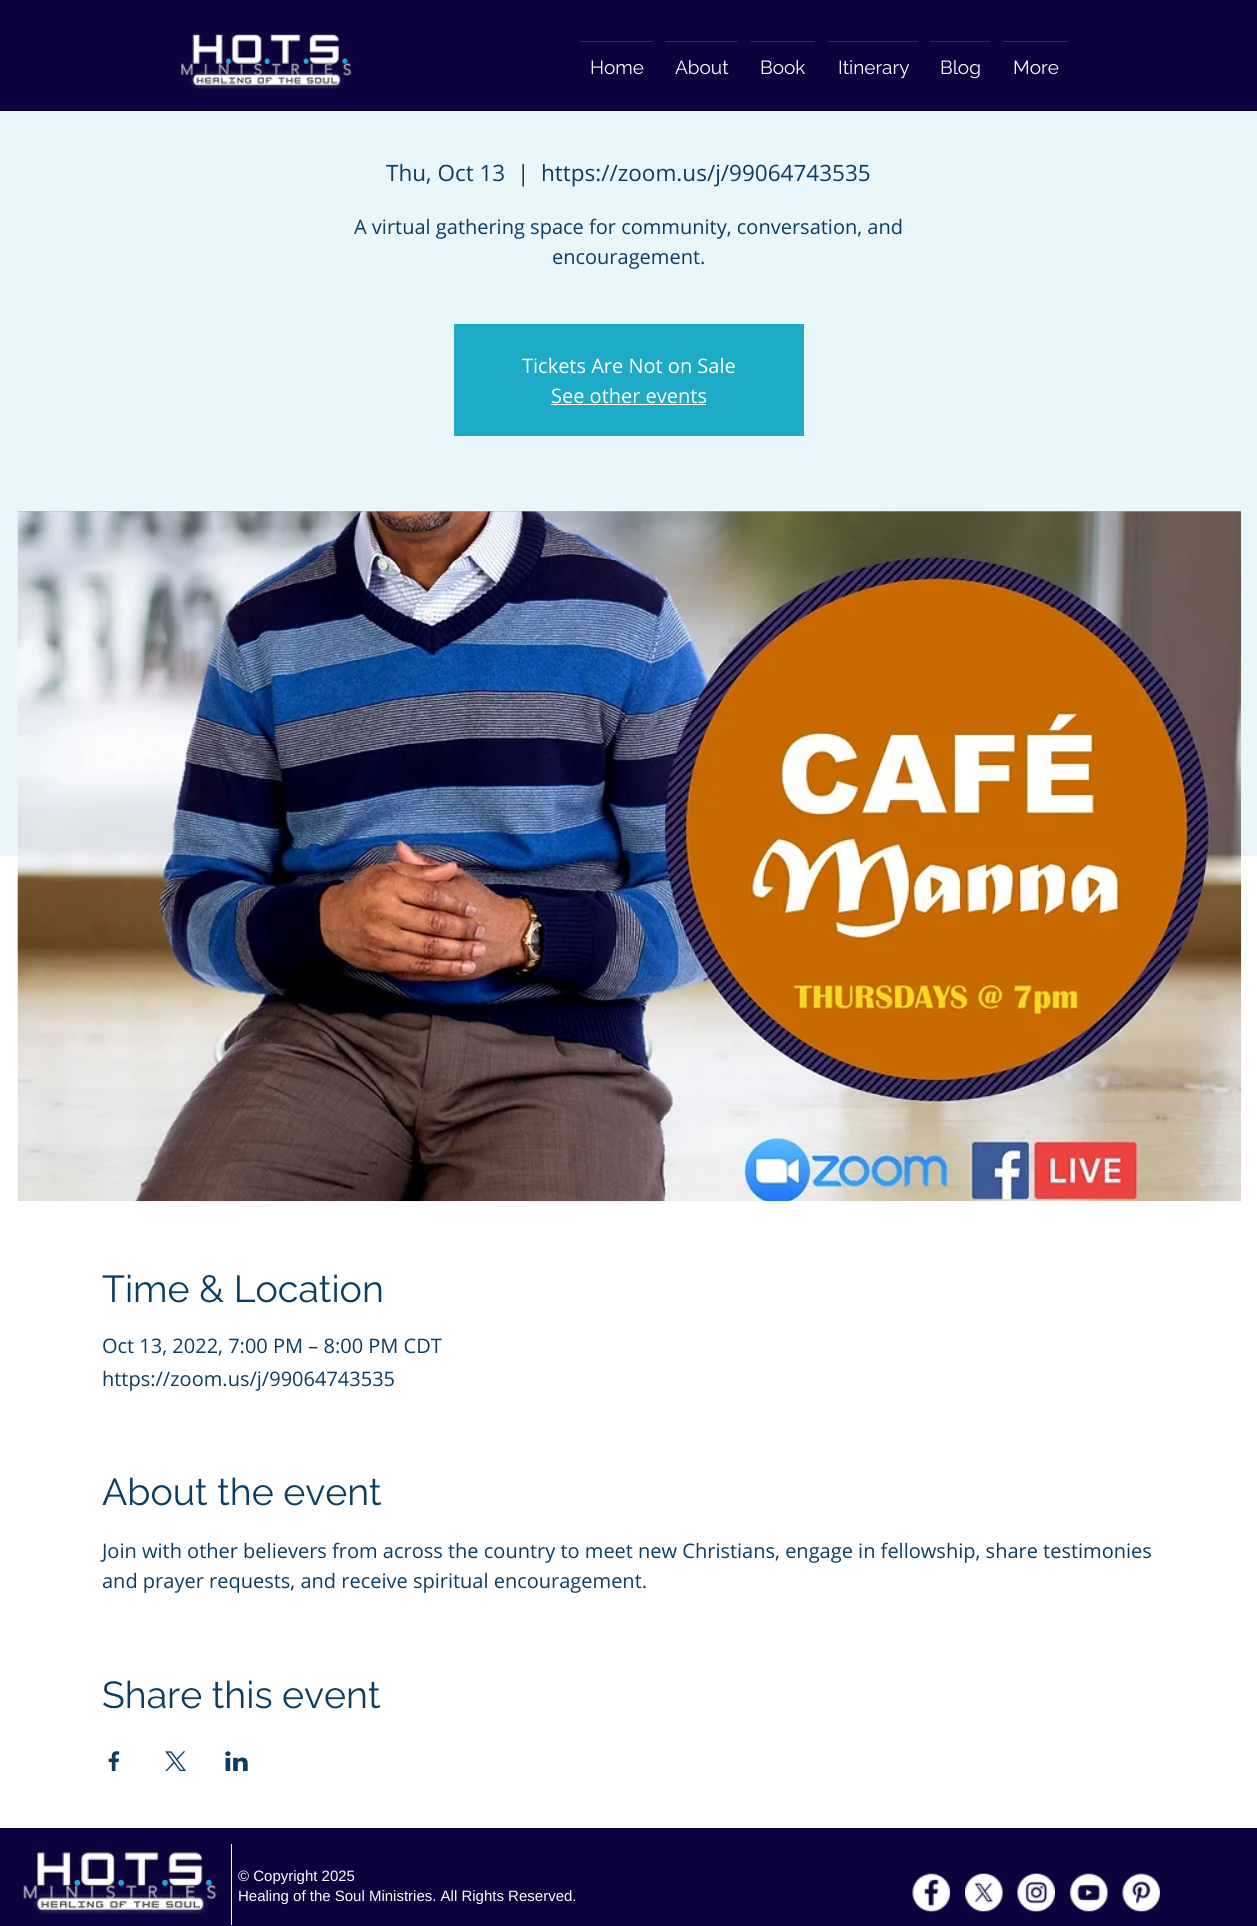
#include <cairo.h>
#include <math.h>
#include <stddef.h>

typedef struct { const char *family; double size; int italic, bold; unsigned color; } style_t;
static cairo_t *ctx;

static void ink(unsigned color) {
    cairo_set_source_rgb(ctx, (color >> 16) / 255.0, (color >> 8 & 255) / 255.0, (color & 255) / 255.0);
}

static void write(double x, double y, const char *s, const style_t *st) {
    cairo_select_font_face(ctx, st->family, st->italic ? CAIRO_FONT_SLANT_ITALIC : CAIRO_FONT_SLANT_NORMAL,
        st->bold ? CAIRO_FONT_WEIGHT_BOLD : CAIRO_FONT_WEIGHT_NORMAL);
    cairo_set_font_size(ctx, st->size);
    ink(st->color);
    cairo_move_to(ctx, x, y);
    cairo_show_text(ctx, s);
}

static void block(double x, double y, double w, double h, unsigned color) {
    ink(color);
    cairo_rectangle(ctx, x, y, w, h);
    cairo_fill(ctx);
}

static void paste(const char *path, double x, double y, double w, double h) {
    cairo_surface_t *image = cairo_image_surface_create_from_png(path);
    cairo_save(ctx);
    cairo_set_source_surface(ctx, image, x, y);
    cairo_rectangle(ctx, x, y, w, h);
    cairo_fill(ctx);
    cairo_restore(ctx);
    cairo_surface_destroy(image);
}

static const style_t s1 = {"Raleway", 19, 0, 0, 0xffffff};
static const style_t s2 = {"Open Sans", 22.5, 0, 0, 0x0c3c60};
static const style_t s3 = {"Open Sans", 20, 0, 0, 0x0c3c60};
static const style_t s4 = {"Open Sans", 20, 0, 0, 0xffffff};
static const style_t s5 = {"Raleway", 37.5, 0, 0, 0x0c3c60};
static const style_t s6 = {"Liberation Sans", 15, 0, 0, 0xffffff};

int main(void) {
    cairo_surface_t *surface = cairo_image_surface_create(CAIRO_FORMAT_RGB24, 1257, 1926);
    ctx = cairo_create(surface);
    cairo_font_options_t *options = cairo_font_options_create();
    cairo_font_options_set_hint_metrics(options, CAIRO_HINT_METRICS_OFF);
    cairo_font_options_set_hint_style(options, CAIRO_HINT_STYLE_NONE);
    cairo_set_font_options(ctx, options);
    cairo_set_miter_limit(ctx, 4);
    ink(0xffffff);
    cairo_paint(ctx);
    block(0, 0, 1257, 111, 0x0d023d);
    paste("pic1.png", 181, 32, 171, 57);
    block(580, 41, 73, 1, 0x0c3c60);
    write(590, 74, "Home", &s1);
    block(665, 41, 73, 1, 0x0c3c60);
    write(675, 74, "About", &s1);
    block(750, 41, 65, 1, 0x0c3c60);
    write(760, 74, "Book", &s1);
    block(828, 41, 90, 1, 0x0c3c60);
    write(838, 74, "Itinerary", &s1);
    block(930, 41, 60, 1, 0x0c3c60);
    write(940, 74, "Blog", &s1);
    block(1003, 41, 65, 1, 0x0c3c60);
    write(1013, 74, "More", &s1);
    block(0, 111, 1257, 745, 0xe9f7fa);
    write(386, 181, "Thu, Oct 13", &s2);
    write(517, 181, "|", &s2);
    write(541, 181, "https://zoom.us/j/99064743535", &s2);
    write(354, 234, "A virtual gathering space for community, conversation, and", &s3);
    write(552, 264, "encouragement.", &s3);
    block(454, 324, 350, 112, 0x1eabc7);
    write(522, 373, "Tickets Are Not on Sale", &s4);
    write(551, 403, "See other events", &s4);
    block(551, 404, 155, 1, 0xffffff);
    block(18, 511, 1223, 1, 0x7dcada);
    paste("pic2.png", 17, 511, 1225, 691);
    write(102, 1302, "Time & Location", &s5);
    write(102, 1353, "Oct 13, 2022, 7:00 PM – 8:00 PM CDT", &s3);
    write(102, 1386, "https://zoom.us/j/99064743535", &s3);
    write(102, 1505, "About the event", &s5);
    write(102, 1558, "Join with other believers from across the country to meet new Christians, engage in fellowship, share testimonies", &s3);
    write(102, 1588, "and prayer requests, and receive spiritual encouragement.", &s3);
    write(102, 1708, "Share this event", &s5);
    paste("pic3.png", 108, 1751, 12, 20);
    paste("pic4.png", 165, 1751, 21, 20);
    paste("pic5.png", 225, 1751, 23, 20);
    block(0, 1828, 1257, 98, 0x0d023d);
    paste("pic6.png", 23, 1849, 194, 65);
    block(231, 1844, 1, 81, 0xffffff);
    write(238, 1881, "© Copyright 2025", &s6);
    write(238, 1901, "Healing of the Soul Ministries. All Rights Reserved.", &s6);
    paste("pic7.png", 912, 1873, 38, 39);
    paste("pic8.png", 965, 1873, 38, 39);
    paste("pic9.png", 1017, 1873, 38, 39);
    paste("pic10.png", 1070, 1873, 38, 39);
    paste("pic11.png", 1122, 1873, 38, 39);
    cairo_surface_write_to_png(surface, "screenshot.png");
    cairo_font_options_destroy(options);
    cairo_destroy(ctx);
    cairo_surface_destroy(surface);
    return 0;
}
